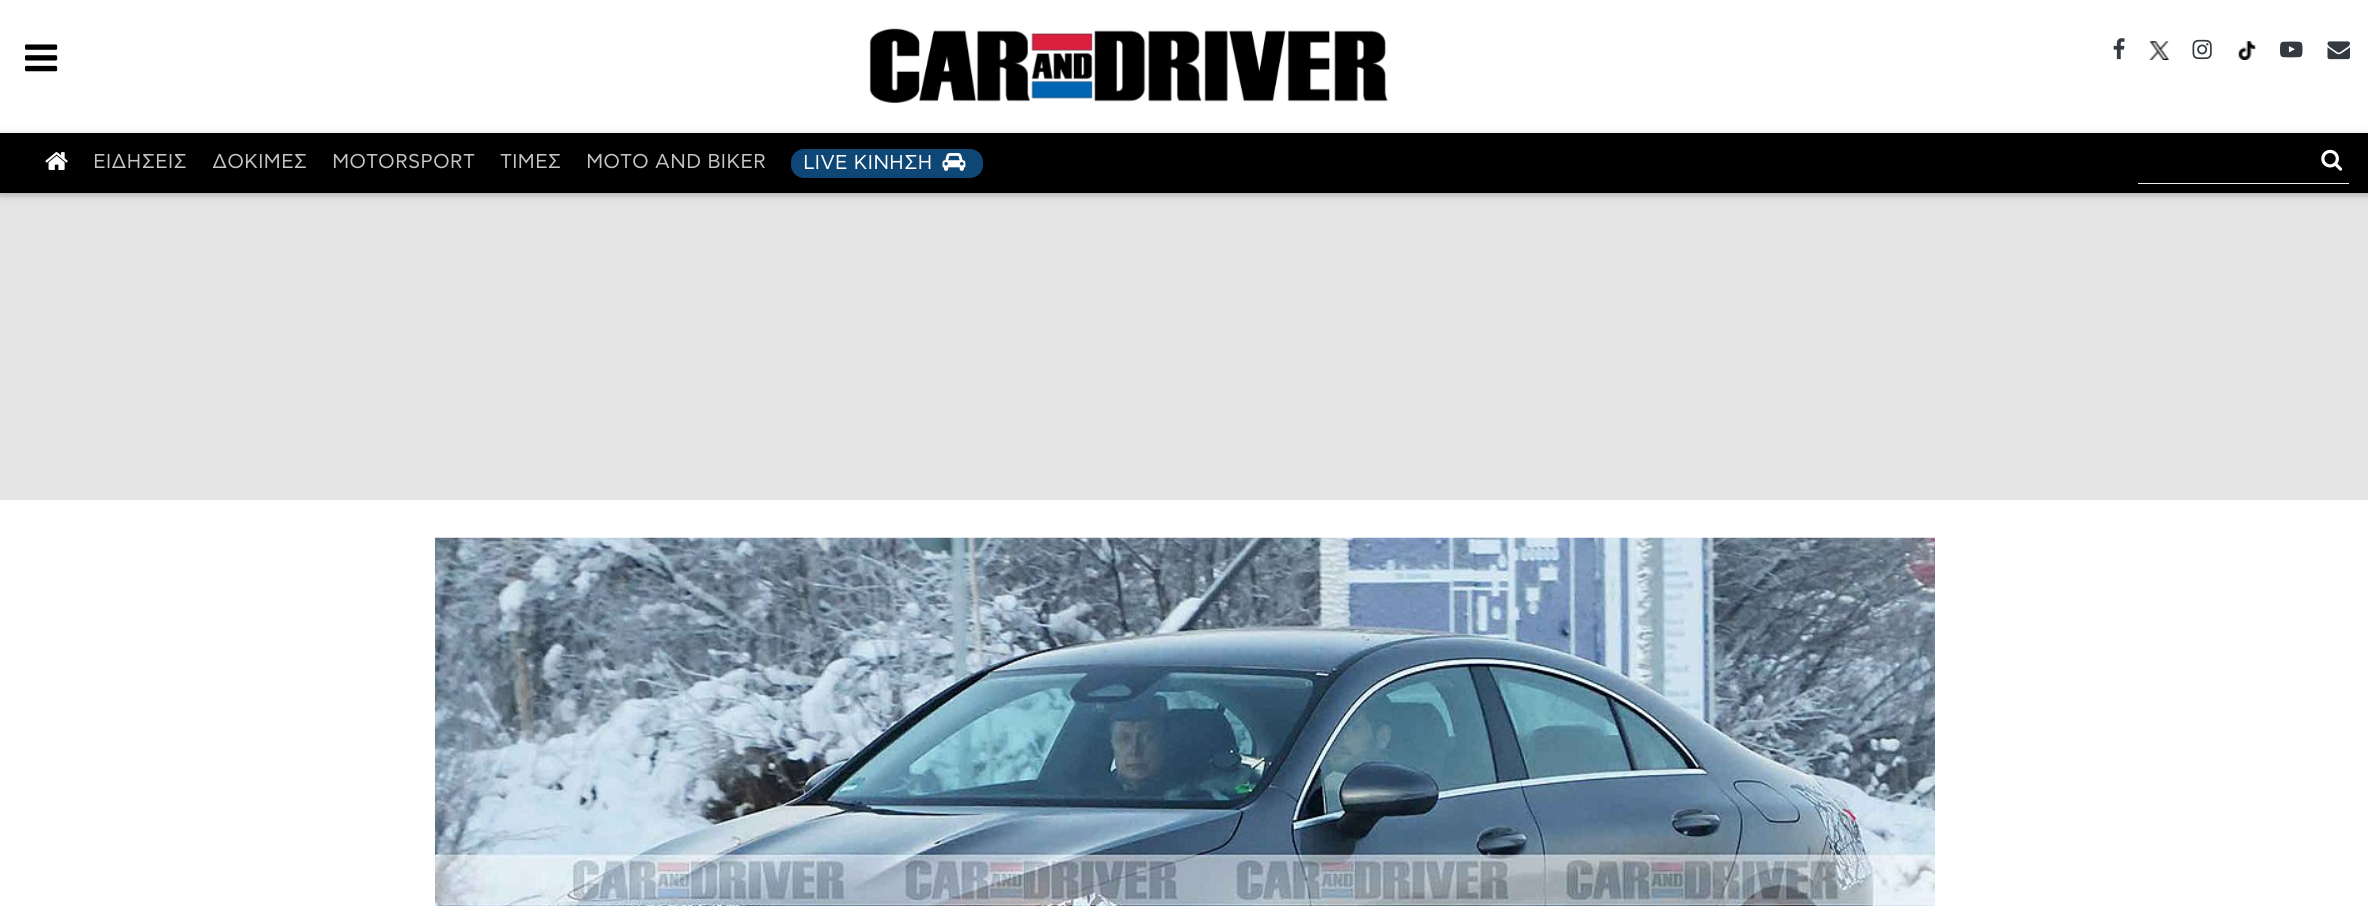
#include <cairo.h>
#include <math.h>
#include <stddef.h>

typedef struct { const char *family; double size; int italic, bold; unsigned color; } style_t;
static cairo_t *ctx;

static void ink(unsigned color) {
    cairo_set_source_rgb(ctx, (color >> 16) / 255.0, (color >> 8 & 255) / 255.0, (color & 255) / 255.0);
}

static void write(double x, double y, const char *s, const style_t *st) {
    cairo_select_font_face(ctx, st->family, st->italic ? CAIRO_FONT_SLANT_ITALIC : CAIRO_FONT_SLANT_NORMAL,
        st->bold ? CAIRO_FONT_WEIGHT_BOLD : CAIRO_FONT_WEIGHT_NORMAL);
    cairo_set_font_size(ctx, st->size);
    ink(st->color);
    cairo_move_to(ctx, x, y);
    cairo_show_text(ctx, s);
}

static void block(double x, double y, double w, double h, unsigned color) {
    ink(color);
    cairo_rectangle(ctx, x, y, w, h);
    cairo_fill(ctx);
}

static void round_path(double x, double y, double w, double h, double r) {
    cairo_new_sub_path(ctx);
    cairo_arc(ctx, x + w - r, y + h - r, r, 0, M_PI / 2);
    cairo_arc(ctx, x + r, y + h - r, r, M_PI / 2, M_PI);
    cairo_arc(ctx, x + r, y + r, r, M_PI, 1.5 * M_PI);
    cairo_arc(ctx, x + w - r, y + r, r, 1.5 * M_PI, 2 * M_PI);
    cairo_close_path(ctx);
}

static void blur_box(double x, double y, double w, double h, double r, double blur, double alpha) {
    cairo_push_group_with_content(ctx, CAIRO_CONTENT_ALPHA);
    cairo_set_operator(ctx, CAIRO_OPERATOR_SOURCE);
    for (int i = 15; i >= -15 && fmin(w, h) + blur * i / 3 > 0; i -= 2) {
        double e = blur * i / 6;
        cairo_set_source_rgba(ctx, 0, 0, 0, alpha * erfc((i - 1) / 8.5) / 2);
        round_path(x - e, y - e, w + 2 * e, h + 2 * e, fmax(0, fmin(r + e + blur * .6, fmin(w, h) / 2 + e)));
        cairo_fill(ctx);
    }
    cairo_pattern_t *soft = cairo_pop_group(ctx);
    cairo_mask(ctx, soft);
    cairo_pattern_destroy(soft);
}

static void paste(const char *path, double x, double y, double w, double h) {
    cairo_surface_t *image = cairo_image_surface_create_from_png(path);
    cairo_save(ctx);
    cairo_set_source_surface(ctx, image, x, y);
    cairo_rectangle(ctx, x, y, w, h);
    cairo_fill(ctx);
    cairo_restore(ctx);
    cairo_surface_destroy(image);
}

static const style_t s1 = {"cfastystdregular", 20, 0, 0, 0xc5c5c5};
static const style_t s2 = {"cfastystdregular", 20, 0, 0, 0xffffff};

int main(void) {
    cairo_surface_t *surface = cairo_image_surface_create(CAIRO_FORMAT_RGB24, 2368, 906);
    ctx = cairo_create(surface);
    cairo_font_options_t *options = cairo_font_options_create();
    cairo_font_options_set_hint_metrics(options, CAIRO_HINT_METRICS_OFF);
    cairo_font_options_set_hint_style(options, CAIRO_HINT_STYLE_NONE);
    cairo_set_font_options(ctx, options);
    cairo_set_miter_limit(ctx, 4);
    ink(0xffffff);
    cairo_paint(ctx);
    paste("pic1.png", 25, 44, 33, 28);
    paste("pic2.png", 869, 28, 519, 75);
    paste("pic3.png", 2113, 38, 12, 22);
    paste("pic4.png", 2149, 41, 20, 19);
    paste("pic5.png", 2192, 39, 20, 21);
    paste("pic6.png", 2238, 41, 18, 19);
    paste("pic7.png", 2280, 41, 23, 17);
    paste("pic8.png", 2327, 41, 23, 19);
    block(0, 193, 2368, 307, 0xe5e5e5);
    ink(0x000000);
    blur_box(0, 135, 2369, 60, 0, 6, 0.12);
    blur_box(0, 135, 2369, 60, 0, 3, 0.16);
    block(0, 133, 2368, 60, 0x000000);
    paste("pic9.png", 45, 152, 23, 18);
    write(93, 168, "ΕΙΔΗΣΕΙΣ", &s1);
    write(212, 168, "ΔΟΚΙΜΕΣ", &s1);
    write(332, 168, "MOTORSPORT", &s1);
    write(500, 168, "ΤΙΜΕΣ", &s1);
    write(586, 168, "MOTO AND BIKER", &s1);
    ink(0x0e4676);
    round_path(791, 149, 192, 29, 13);
    cairo_fill(ctx);
    write(803, 169, "LIVE ΚΙΝΗΣΗ", &s2);
    paste("pic10.png", 942, 153, 24, 18);
    block(2138, 183, 211, 1, 0xf0f0f0);
    paste("pic11.png", 2321, 149, 22, 22);
    paste("pic12.png", 435, 537, 1500, 369);
    cairo_surface_write_to_png(surface, "screenshot.png");
    cairo_font_options_destroy(options);
    cairo_destroy(ctx);
    cairo_surface_destroy(surface);
    return 0;
}
